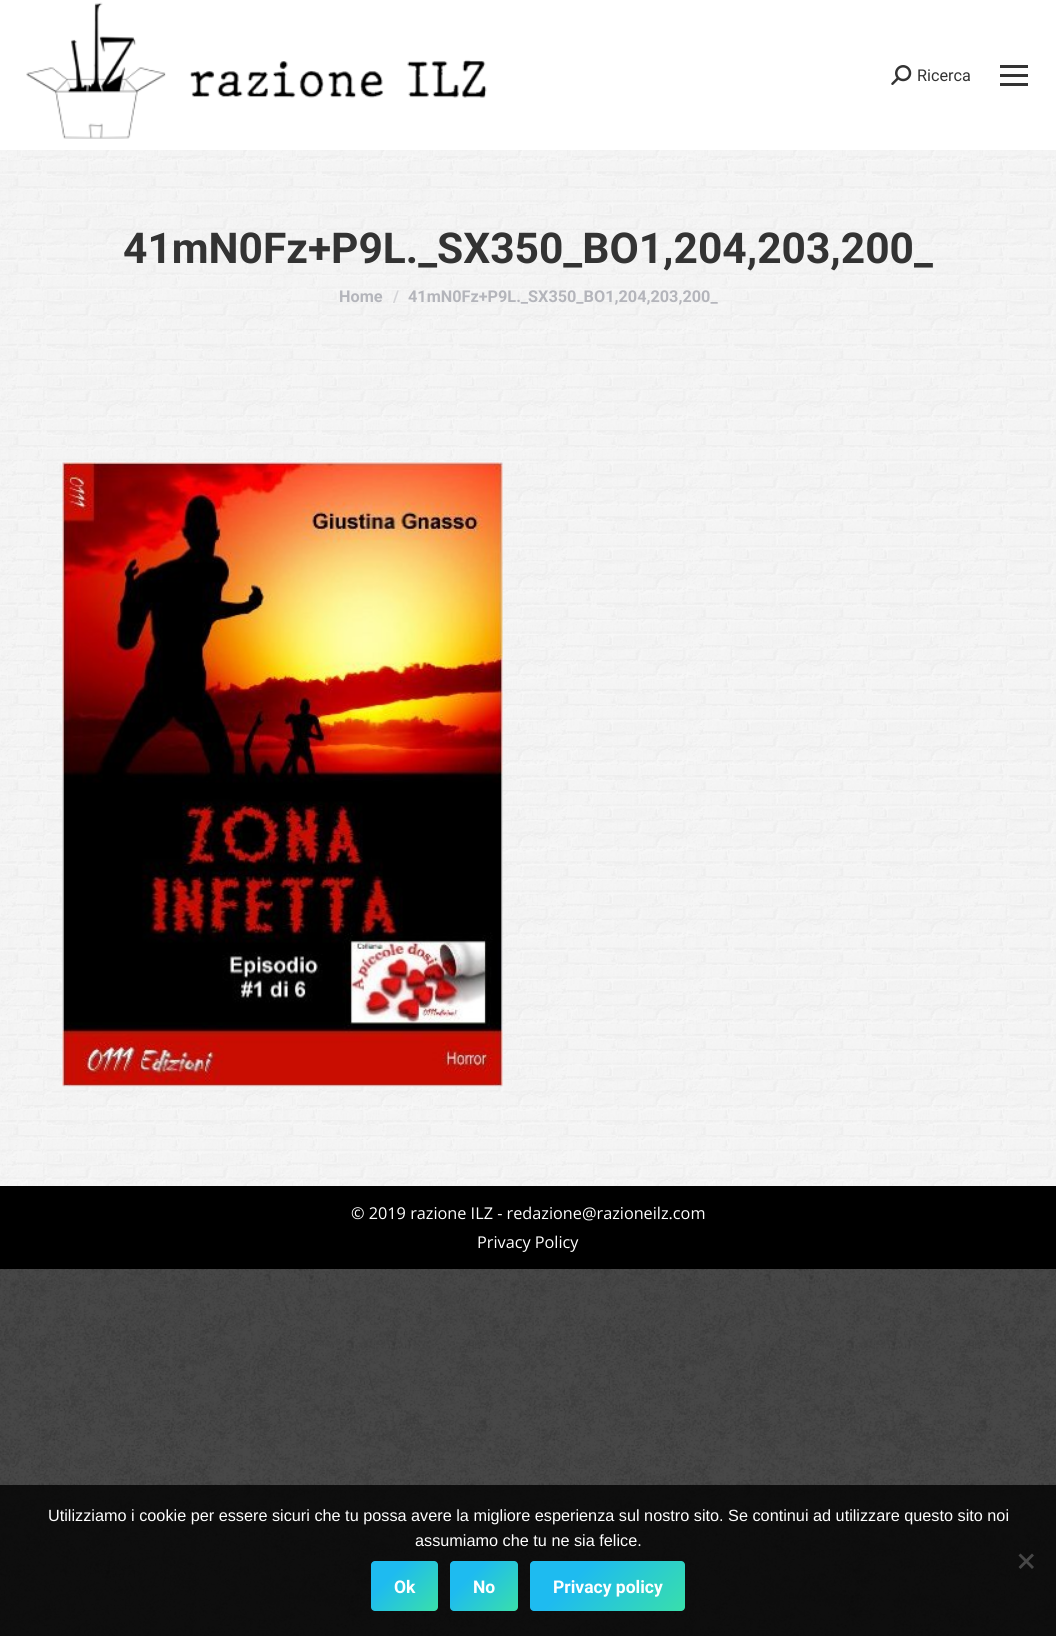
#include <cairo.h>
#include <math.h>
#include <stddef.h>

typedef struct { const char *family; double size; int italic, bold; unsigned color; } style_t;
static cairo_t *ctx;

static void ink(unsigned color) {
    cairo_set_source_rgb(ctx, (color >> 16) / 255.0, (color >> 8 & 255) / 255.0, (color & 255) / 255.0);
}

static void write(double x, double y, const char *s, const style_t *st) {
    cairo_select_font_face(ctx, st->family, st->italic ? CAIRO_FONT_SLANT_ITALIC : CAIRO_FONT_SLANT_NORMAL,
        st->bold ? CAIRO_FONT_WEIGHT_BOLD : CAIRO_FONT_WEIGHT_NORMAL);
    cairo_set_font_size(ctx, st->size);
    ink(st->color);
    cairo_move_to(ctx, x, y);
    cairo_show_text(ctx, s);
}

static void block(double x, double y, double w, double h, unsigned color) {
    ink(color);
    cairo_rectangle(ctx, x, y, w, h);
    cairo_fill(ctx);
}

static void round_path(double x, double y, double w, double h, double r) {
    cairo_new_sub_path(ctx);
    cairo_arc(ctx, x + w - r, y + h - r, r, 0, M_PI / 2);
    cairo_arc(ctx, x + r, y + h - r, r, M_PI / 2, M_PI);
    cairo_arc(ctx, x + r, y + r, r, M_PI, 1.5 * M_PI);
    cairo_arc(ctx, x + w - r, y + r, r, 1.5 * M_PI, 2 * M_PI);
    cairo_close_path(ctx);
}

static void paste(const char *path, double x, double y, double w, double h) {
    cairo_surface_t *image = cairo_image_surface_create_from_png(path);
    cairo_save(ctx);
    cairo_set_source_surface(ctx, image, x, y);
    cairo_rectangle(ctx, x, y, w, h);
    cairo_fill(ctx);
    cairo_restore(ctx);
    cairo_surface_destroy(image);
}

static const style_t s1 = {"Roboto", 16.25, 0, 0, 0x333333};
static const style_t s2 = {"Roboto", 42.5, 0, 1, 0x333333};
static const style_t s3 = {"Roboto", 16.25, 0, 1, 0xb4b5bb};
static const style_t s4 = {"Roboto", 16.25, 0, 1, 0xd4d4d7};
static const style_t s5 = {"Open Sans", 16.25, 0, 0, 0xffffff};
static const style_t s6 = {"Liberation Sans", 16.25, 0, 0, 0xffffff};
static const style_t s7 = {"Roboto", 17.5, 0, 1, 0xffffff};

int main(void) {
    cairo_surface_t *surface = cairo_image_surface_create(CAIRO_FORMAT_RGB24, 1056, 1636);
    ctx = cairo_create(surface);
    cairo_font_options_t *options = cairo_font_options_create();
    cairo_font_options_set_hint_metrics(options, CAIRO_HINT_METRICS_OFF);
    cairo_font_options_set_hint_style(options, CAIRO_HINT_STYLE_NONE);
    cairo_set_font_options(ctx, options);
    cairo_set_miter_limit(ctx, 4);
    cairo_pattern_t *gradient;
    ink(0x333333);
    cairo_paint(ctx);
    paste("pic1.png", 0, 1269, 1056, 367);
    paste("pic2.png", 0, 150, 1056, 1036);
    block(0, 0, 1056, 150, 0xffffff);
    paste("pic3.png", 26, 2, 461, 137);
    paste("pic4.png", 891, 65, 21, 20);
    write(917, 81, "Ricerca", &s1);
    block(1000, 65, 28, 3, 0x333333);
    block(1000, 74, 28, 3, 0x333333);
    block(1000, 83, 28, 3, 0x333333);
    write(123, 263, "41mN0Fz+P9L._SX350_BO1,204,203,200_", &s2);
    write(339, 302, "Home", &s3);
    write(393, 302, "/", &s4);
    write(408, 302, "41mN0Fz+P9L._SX350_BO1,204,203,200_", &s3);
    paste("pic5.png", 62, 462, 441, 625);
    block(0, 1186, 1056, 83, 0x000000);
    write(351, 1219, "© 2019 razione ILZ - redazione@razioneilz.com", &s5);
    write(477, 1248, "Privacy Policy", &s5);
    cairo_set_source_rgba(ctx, 0, 0, 0, 0.8);
    cairo_rectangle(ctx, 0, 1485, 1056, 151);
    cairo_fill(ctx);
    write(48, 1521, "Utilizziamo i cookie per essere sicuri che tu possa avere la migliore esperienza sul nostro sito. Se continui ad utilizzare questo sito noi", &s6);
    write(415, 1546, "assumiamo che tu ne sia felice.", &s6);
    ink(0x474747);
    cairo_new_path(ctx);
    cairo_move_to(ctx, 1032, 1553.5);
    cairo_line_to(ctx, 1034, 1555.5);
    cairo_line_to(ctx, 1020.5, 1569);
    cairo_line_to(ctx, 1018.5, 1567);
    cairo_close_path(ctx);
    cairo_fill(ctx);
    cairo_new_path(ctx);
    cairo_move_to(ctx, 1018.5, 1555.5);
    cairo_line_to(ctx, 1020.5, 1553.5);
    cairo_line_to(ctx, 1034, 1567);
    cairo_line_to(ctx, 1032, 1569);
    cairo_close_path(ctx);
    cairo_fill(ctx);
    gradient = cairo_pattern_create_linear(375, 1557, 433, 1615);
    cairo_pattern_add_color_stop_rgba(gradient, 0.3, 0.118, 0.733, 0.941, 1);
    cairo_pattern_add_color_stop_rgba(gradient, 1, 0.224, 0.875, 0.667, 1);
    cairo_set_source(ctx, gradient);
    cairo_pattern_destroy(gradient);
    round_path(371, 1561, 67, 50, 4);
    cairo_fill(ctx);
    write(394, 1593, "Ok", &s7);
    gradient = cairo_pattern_create_linear(454, 1557, 513, 1616);
    cairo_pattern_add_color_stop_rgba(gradient, 0.3, 0.118, 0.733, 0.941, 1);
    cairo_pattern_add_color_stop_rgba(gradient, 1, 0.224, 0.875, 0.667, 1);
    cairo_set_source(ctx, gradient);
    cairo_pattern_destroy(gradient);
    round_path(450, 1561, 68, 50, 4);
    cairo_fill(ctx);
    write(473, 1593, "No", &s7);
    gradient = cairo_pattern_create_linear(556, 1535, 659, 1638);
    cairo_pattern_add_color_stop_rgba(gradient, 0.3, 0.118, 0.733, 0.941, 1);
    cairo_pattern_add_color_stop_rgba(gradient, 1, 0.224, 0.875, 0.667, 1);
    cairo_set_source(ctx, gradient);
    cairo_pattern_destroy(gradient);
    round_path(530, 1561, 155, 50, 4);
    cairo_fill(ctx);
    write(553, 1593, "Privacy policy", &s7);
    cairo_surface_write_to_png(surface, "screenshot.png");
    cairo_font_options_destroy(options);
    cairo_destroy(ctx);
    cairo_surface_destroy(surface);
    return 0;
}
